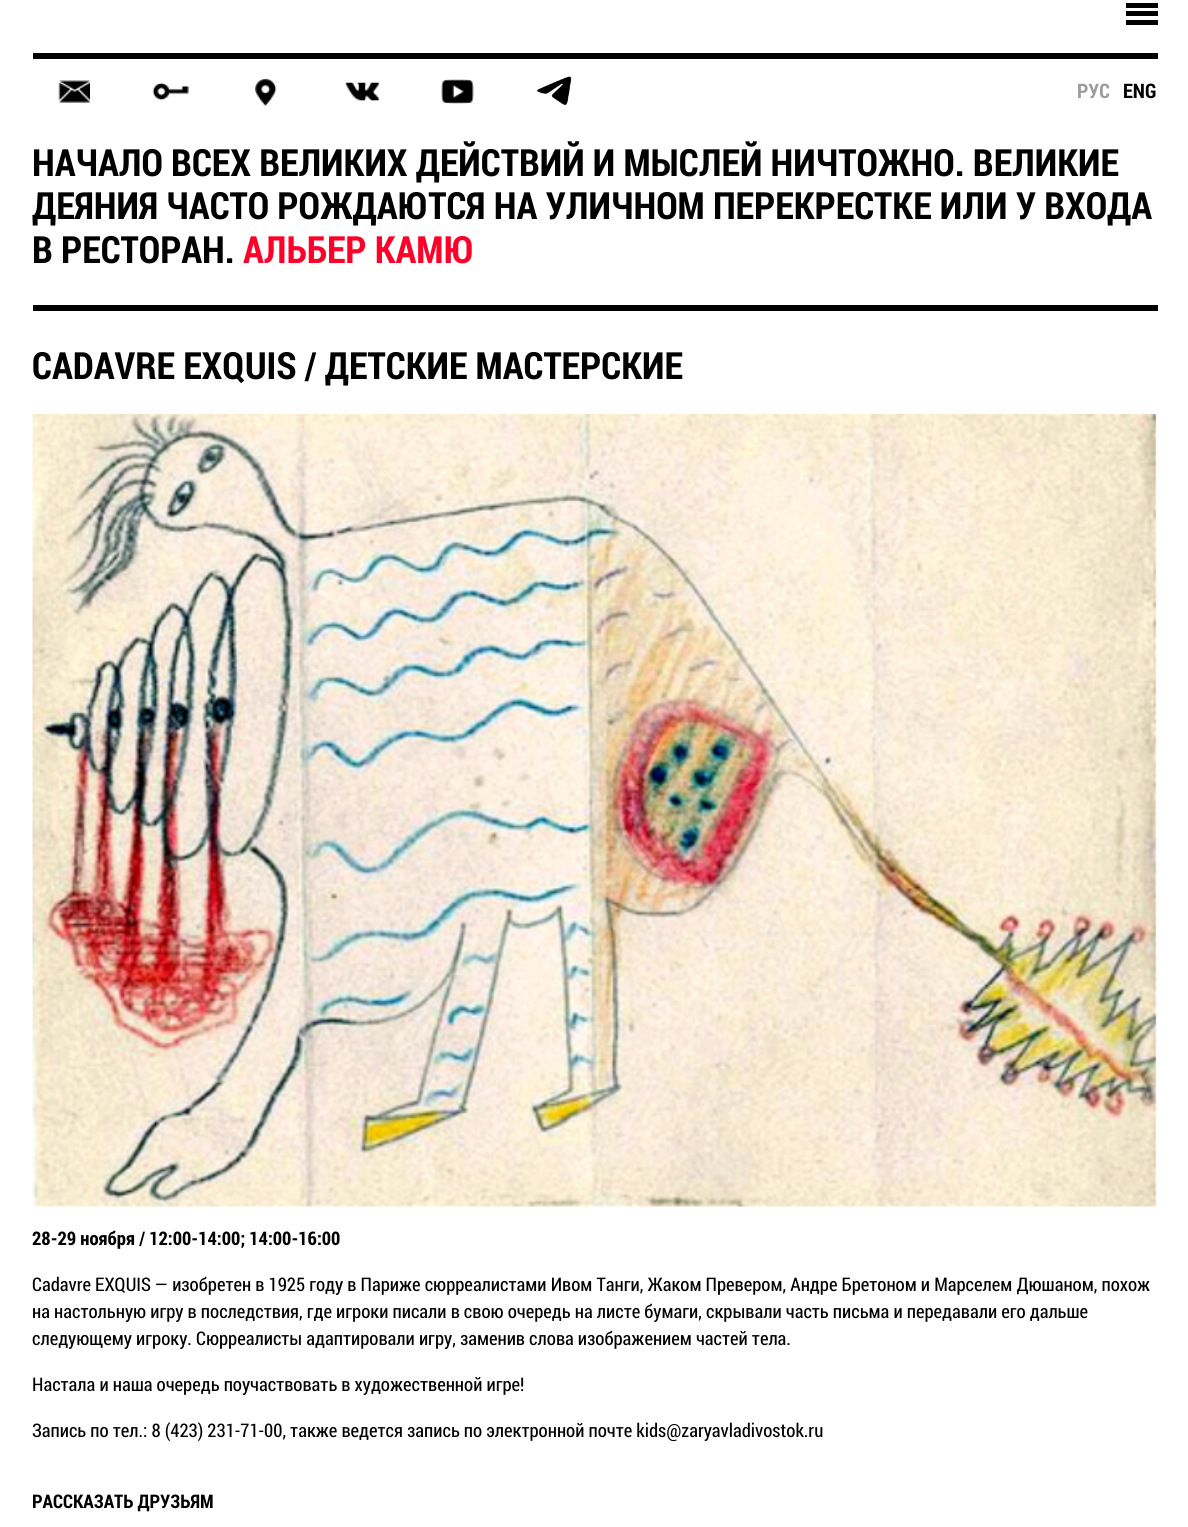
#include <cairo.h>
#include <math.h>
#include <stddef.h>

typedef struct { const char *family; double size; int italic, bold; unsigned color; } style_t;
static cairo_t *ctx;

static void ink(unsigned color) {
    cairo_set_source_rgb(ctx, (color >> 16) / 255.0, (color >> 8 & 255) / 255.0, (color & 255) / 255.0);
}

static void write(double x, double y, const char *s, const style_t *st) {
    cairo_select_font_face(ctx, st->family, st->italic ? CAIRO_FONT_SLANT_ITALIC : CAIRO_FONT_SLANT_NORMAL,
        st->bold ? CAIRO_FONT_WEIGHT_BOLD : CAIRO_FONT_WEIGHT_NORMAL);
    cairo_set_font_size(ctx, st->size);
    ink(st->color);
    cairo_move_to(ctx, x, y);
    cairo_show_text(ctx, s);
}

static void block(double x, double y, double w, double h, unsigned color) {
    ink(color);
    cairo_rectangle(ctx, x, y, w, h);
    cairo_fill(ctx);
}

static void paste(const char *path, double x, double y, double w, double h) {
    cairo_surface_t *image = cairo_image_surface_create_from_png(path);
    cairo_save(ctx);
    cairo_set_source_surface(ctx, image, x, y);
    cairo_rectangle(ctx, x, y, w, h);
    cairo_fill(ctx);
    cairo_restore(ctx);
    cairo_surface_destroy(image);
}

static const style_t s1 = {"Roboto Condensed", 20, 0, 1, 0x9c9c9c};
static const style_t s2 = {"Roboto Condensed", 20, 0, 1, 0x000000};
static const style_t s3 = {"Roboto Condensed", 37.5, 0, 1, 0x000000};
static const style_t s4 = {"Roboto Condensed", 37.5, 0, 1, 0xff0028};
static const style_t s5 = {"Roboto Condensed", 18.75, 0, 1, 0x000000};
static const style_t s6 = {"Roboto Condensed", 18.75, 0, 0, 0x000000};

int main(void) {
    cairo_surface_t *surface = cairo_image_surface_create(CAIRO_FORMAT_RGB24, 1188, 1527);
    ctx = cairo_create(surface);
    cairo_font_options_t *options = cairo_font_options_create();
    cairo_font_options_set_hint_metrics(options, CAIRO_HINT_METRICS_OFF);
    cairo_font_options_set_hint_style(options, CAIRO_HINT_STYLE_NONE);
    cairo_set_font_options(ctx, options);
    cairo_set_miter_limit(ctx, 4);
    ink(0xffffff);
    cairo_paint(ctx);
    block(33, 53, 1125, 6, 0x000000);
    block(33, 305, 1125, 6, 0x000000);
    block(1126, 3, 32, 5, 0x000000);
    block(1126, 11, 32, 5, 0x000000);
    block(1126, 20, 32, 5, 0x000000);
    paste("pic1.png", 58, 80, 32, 23);
    paste("pic2.png", 152, 82, 37, 19);
    paste("pic3.png", 255, 78, 22, 29);
    paste("pic4.png", 345, 82, 34, 20);
    paste("pic5.png", 441, 79, 33, 25);
    paste("pic6.png", 537, 76, 35, 29);
    write(1077, 98, "РУС", &s1);
    write(1123, 98, "ENG", &s2);
    write(32, 176, "НАЧАЛО ВСЕХ ВЕЛИКИХ ДЕЙСТВИЙ И МЫСЛЕЙ НИЧТОЖНО. ВЕЛИКИЕ", &s3);
    write(32, 219, "ДЕЯНИЯ ЧАСТО РОЖДАЮТСЯ НА УЛИЧНОМ ПЕРЕКРЕСТКЕ ИЛИ У ВХОДА", &s3);
    write(32, 263, "В РЕСТОРАН.", &s3);
    write(243, 263, "АЛЬБЕР КАМЮ", &s4);
    write(32, 379, "CADAVRE EXQUIS / ДЕТСКИЕ МАСТЕРСКИЕ", &s3);
    paste("pic7.png", 32, 414, 1125, 793);
    write(32, 1245, "28-29 ноября / 12:00-14:00; 14:00-16:00", &s5);
    write(32, 1291, "Cadavre EXQUIS — изобретен в 1925 году в Париже сюрреалистами Ивом Танги, Жаком Превером, Андре Бретоном и Марселем Дюшаном, похож", &s6);
    write(32, 1318, "на настольную игру в последствия, где игроки писали в свою очередь на листе бумаги, скрывали часть письма и передавали его дальше", &s6);
    write(32, 1345, "следующему игроку. Сюрреалисты адаптировали игру, заменив слова изображением частей тела.", &s6);
    write(32, 1391, "Настала и наша очередь поучаствовать в художественной игре!", &s6);
    write(32, 1437, "Запись по тел.: 8 (423) 231-71-00, также ведется запись по электронной почте kids@zaryavladivostok.ru", &s6);
    write(32, 1508, "РАССКАЗАТЬ ДРУЗЬЯМ", &s5);
    cairo_surface_write_to_png(surface, "screenshot.png");
    cairo_font_options_destroy(options);
    cairo_destroy(ctx);
    cairo_surface_destroy(surface);
    return 0;
}
